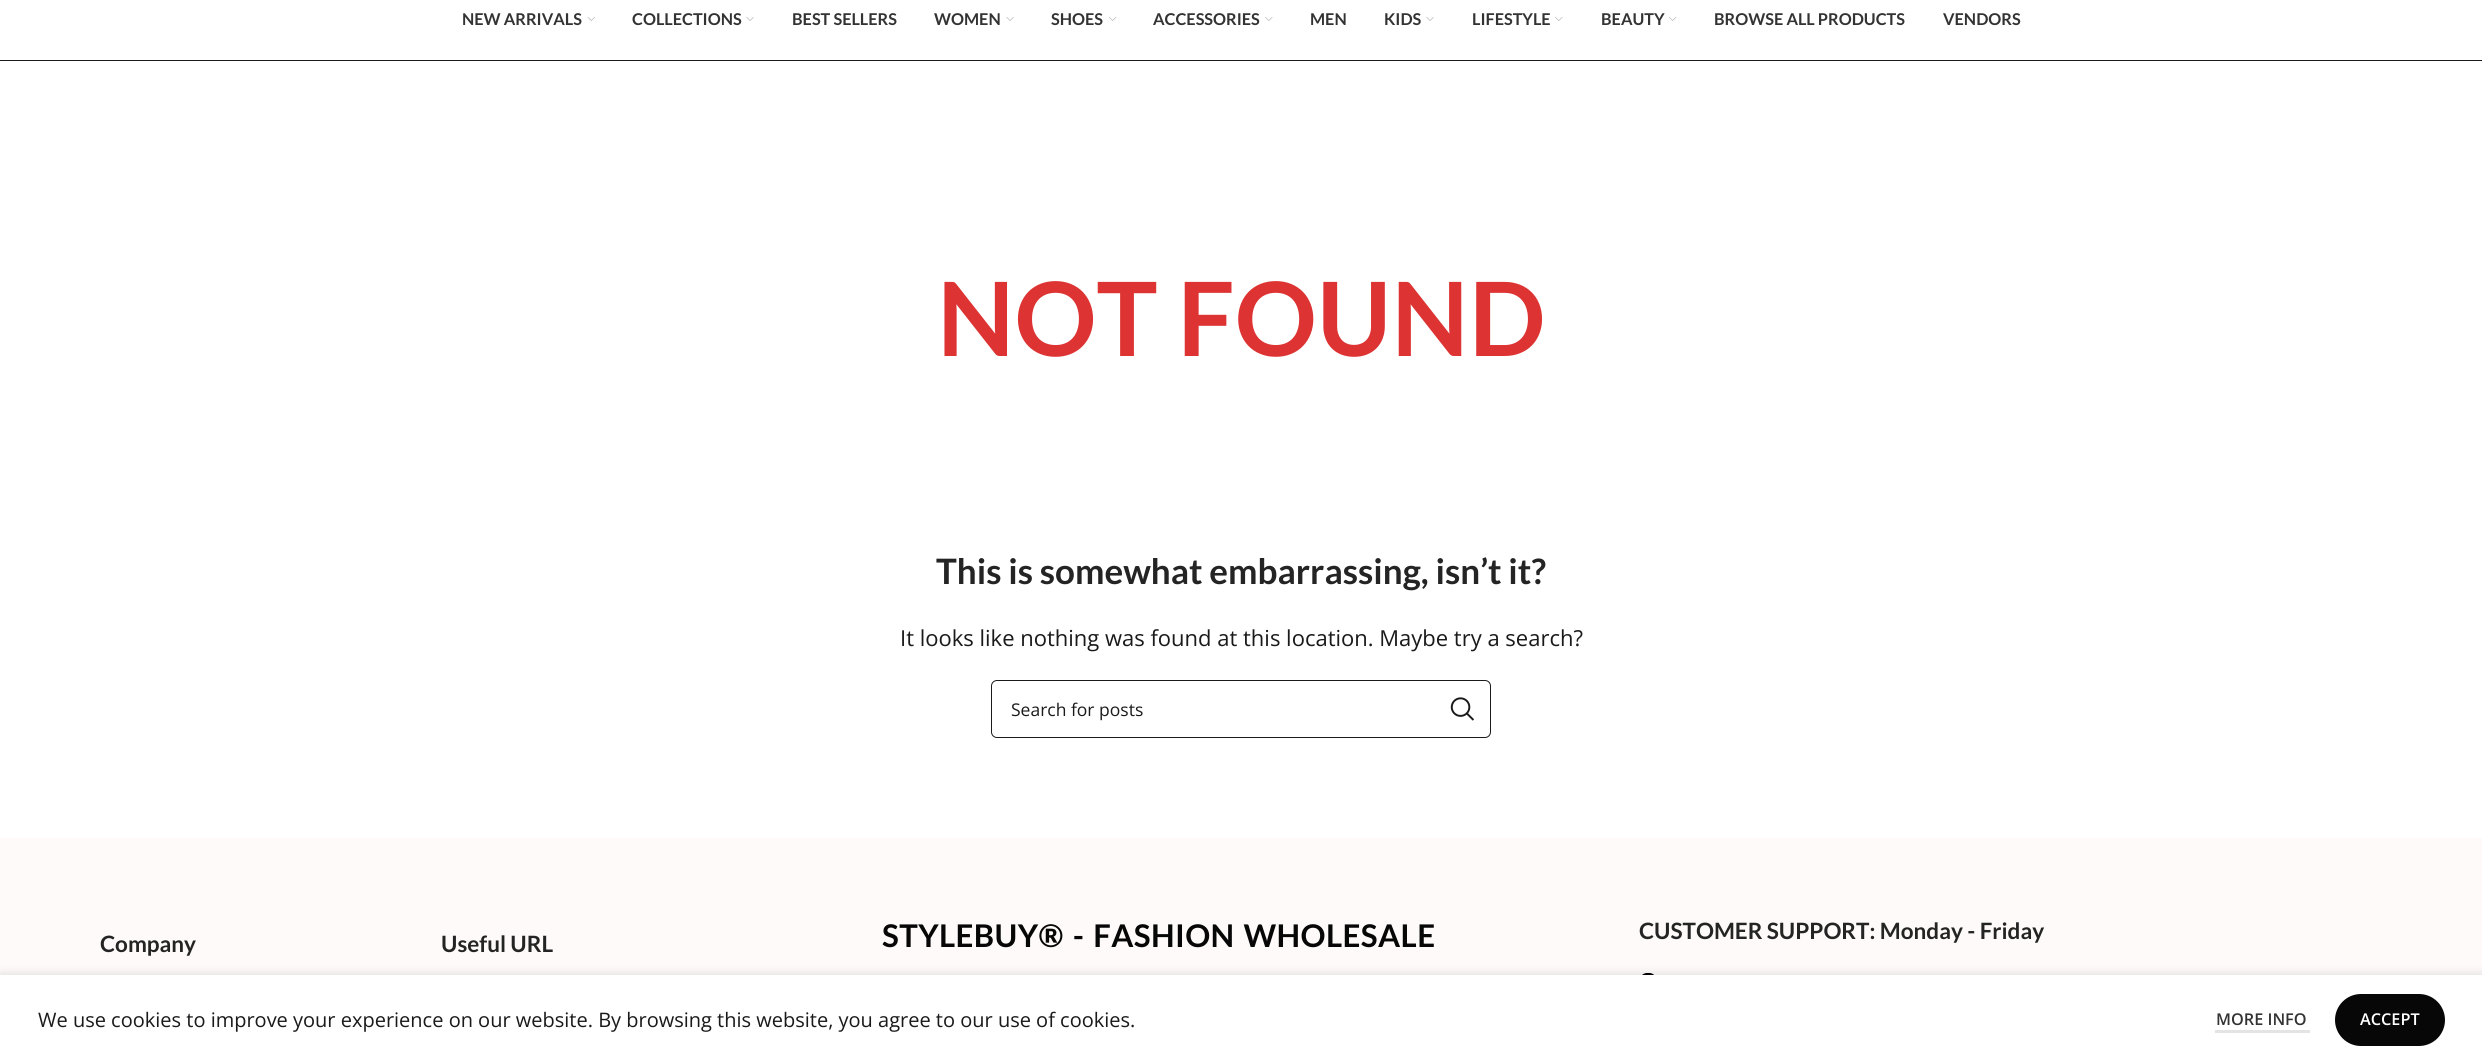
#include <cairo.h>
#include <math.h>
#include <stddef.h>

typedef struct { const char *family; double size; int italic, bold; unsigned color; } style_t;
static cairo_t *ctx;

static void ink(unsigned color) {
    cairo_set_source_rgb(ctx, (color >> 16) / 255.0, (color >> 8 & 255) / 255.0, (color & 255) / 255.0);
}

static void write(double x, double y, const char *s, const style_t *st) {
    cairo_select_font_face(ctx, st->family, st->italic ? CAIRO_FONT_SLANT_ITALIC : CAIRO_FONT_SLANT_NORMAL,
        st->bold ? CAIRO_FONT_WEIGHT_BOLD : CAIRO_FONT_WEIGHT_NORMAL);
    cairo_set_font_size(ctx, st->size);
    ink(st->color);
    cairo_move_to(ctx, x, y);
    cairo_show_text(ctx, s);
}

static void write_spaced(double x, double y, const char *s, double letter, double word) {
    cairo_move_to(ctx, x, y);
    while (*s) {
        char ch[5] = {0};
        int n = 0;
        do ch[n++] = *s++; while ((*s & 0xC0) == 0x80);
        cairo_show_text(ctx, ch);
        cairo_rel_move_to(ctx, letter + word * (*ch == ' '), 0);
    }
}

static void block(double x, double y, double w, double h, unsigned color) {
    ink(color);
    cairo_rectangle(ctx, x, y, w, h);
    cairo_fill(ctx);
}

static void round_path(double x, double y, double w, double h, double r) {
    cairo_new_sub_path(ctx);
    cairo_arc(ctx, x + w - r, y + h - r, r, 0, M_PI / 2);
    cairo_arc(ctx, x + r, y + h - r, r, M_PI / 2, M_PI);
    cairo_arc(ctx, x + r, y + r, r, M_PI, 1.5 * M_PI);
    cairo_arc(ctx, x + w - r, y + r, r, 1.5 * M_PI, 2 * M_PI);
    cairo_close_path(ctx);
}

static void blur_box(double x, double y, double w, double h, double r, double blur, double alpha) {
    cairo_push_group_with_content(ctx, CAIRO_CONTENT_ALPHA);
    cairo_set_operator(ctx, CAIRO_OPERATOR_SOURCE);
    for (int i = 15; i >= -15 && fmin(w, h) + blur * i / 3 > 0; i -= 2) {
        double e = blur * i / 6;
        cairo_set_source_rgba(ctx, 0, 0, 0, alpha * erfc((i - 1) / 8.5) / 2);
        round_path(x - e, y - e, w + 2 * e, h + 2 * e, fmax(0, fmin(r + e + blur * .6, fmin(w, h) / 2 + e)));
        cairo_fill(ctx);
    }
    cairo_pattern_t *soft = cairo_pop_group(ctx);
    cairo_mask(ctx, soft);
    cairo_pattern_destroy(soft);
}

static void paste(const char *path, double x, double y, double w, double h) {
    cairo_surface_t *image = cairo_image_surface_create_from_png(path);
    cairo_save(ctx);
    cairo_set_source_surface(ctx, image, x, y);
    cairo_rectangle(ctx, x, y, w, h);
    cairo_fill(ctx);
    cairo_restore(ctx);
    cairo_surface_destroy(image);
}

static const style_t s1 = {"Lato", 16.25, 0, 1, 0x333333};
static const style_t s2 = {"Lato", 102.5, 0, 1, 0xdd3333};
static const style_t s3 = {"Lato", 35, 0, 1, 0x242424};
static const style_t s4 = {"Open Sans", 22, 0, 0, 0x1a1a1a};
static const style_t s5 = {"Open Sans", 17.5, 0, 0, 0x1a1a1a};
static const style_t s6 = {"Lato", 22.5, 0, 1, 0x242424};
static const style_t s7 = {"Open Sans", 20, 0, 0, 0x1a1a1a};
static const style_t s8 = {"Open Sans SemiBold", 16.25, 0, 0, 0x333333};
static const style_t s9 = {"Open Sans SemiBold", 16.25, 0, 0, 0xffffff};

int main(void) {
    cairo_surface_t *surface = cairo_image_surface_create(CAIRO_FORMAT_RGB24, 2482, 1064);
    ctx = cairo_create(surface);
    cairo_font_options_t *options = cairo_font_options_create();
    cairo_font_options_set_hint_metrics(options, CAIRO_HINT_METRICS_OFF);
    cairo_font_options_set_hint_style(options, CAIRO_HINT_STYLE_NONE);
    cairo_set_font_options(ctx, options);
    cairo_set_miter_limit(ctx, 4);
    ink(0xffffff);
    cairo_paint(ctx);
    block(0, 60, 2482, 1, 0x1a1a1a);
    write(462, 25, "NEW ARRIVALS", &s1);
    paste("pic1.png", 587, 17, 8, 4);
    write(632, 25, "COLLECTIONS", &s1);
    paste("pic2.png", 746, 17, 8, 4);
    write(792, 25, "BEST SELLERS", &s1);
    write(934, 25, "WOMEN", &s1);
    paste("pic2.png", 1006, 17, 8, 4);
    write(1051, 25, "SHOES", &s1);
    paste("pic3.png", 1109, 17, 8, 4);
    write(1153, 25, "ACCESSORIES", &s1);
    paste("pic4.png", 1265, 17, 8, 4);
    write(1310, 25, "MEN", &s1);
    write(1384, 25, "KIDS", &s1);
    paste("pic2.png", 1426, 17, 8, 4);
    write(1472, 25, "LIFESTYLE", &s1);
    paste("pic4.png", 1555, 17, 8, 4);
    write(1601, 25, "BEAUTY", &s1);
    paste("pic3.png", 1669, 17, 8, 4);
    write(1714, 25, "BROWSE ALL PRODUCTS", &s1);
    write(1943, 25, "VENDORS", &s1);
    write(937, 356, "NOT FOUND", &s2);
    write(936, 584, "This is somewhat embarrassing, isn’t it?", &s3);
    write(900, 646, "It looks like nothing was found at this location. Maybe try a search?", &s4);
    round_path(991.5, 680.5, 499, 57, 5.5);
    cairo_set_line_width(ctx, 1);
    cairo_stroke(ctx);
    write(1011, 716, "Search for posts", &s5);
    paste("pic5.png", 1450, 697, 24, 24);
    block(0, 838, 2482, 137, 0xfffafa);
    write(100, 952, "Company", &s6);
    write(441, 952, "Useful URL", &s6);
    cairo_set_font_size(ctx, 31.25);
    ink(0x070707);
    write_spaced(882, 947, "STYLEBUY® - FASHION WHOLESALE", 0.4, 2.5);
    write(1639, 939, "CUSTOMER SUPPORT: Monday - Friday", &s6);
    paste("pic6.png", 1642, 973, 12, 2);
    ink(0x000000);
    blur_box(0, 975, 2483, 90, 0, 5.5, 0.14);
    block(0, 975, 2482, 89, 0xffffff);
    write(38, 1027, "We use cookies to improve your experience on our website. By browsing this website, you agree to our use of cookies.", &s7);
    write(2216, 1025, "MORE INFO", &s8);
    block(2215, 1030, 95, 3, 0xe4e4e4);
    ink(0x070707);
    round_path(2335, 994, 110, 52, 26);
    cairo_fill(ctx);
    write(2360, 1025, "ACCEPT", &s9);
    cairo_surface_write_to_png(surface, "screenshot.png");
    cairo_font_options_destroy(options);
    cairo_destroy(ctx);
    cairo_surface_destroy(surface);
    return 0;
}
